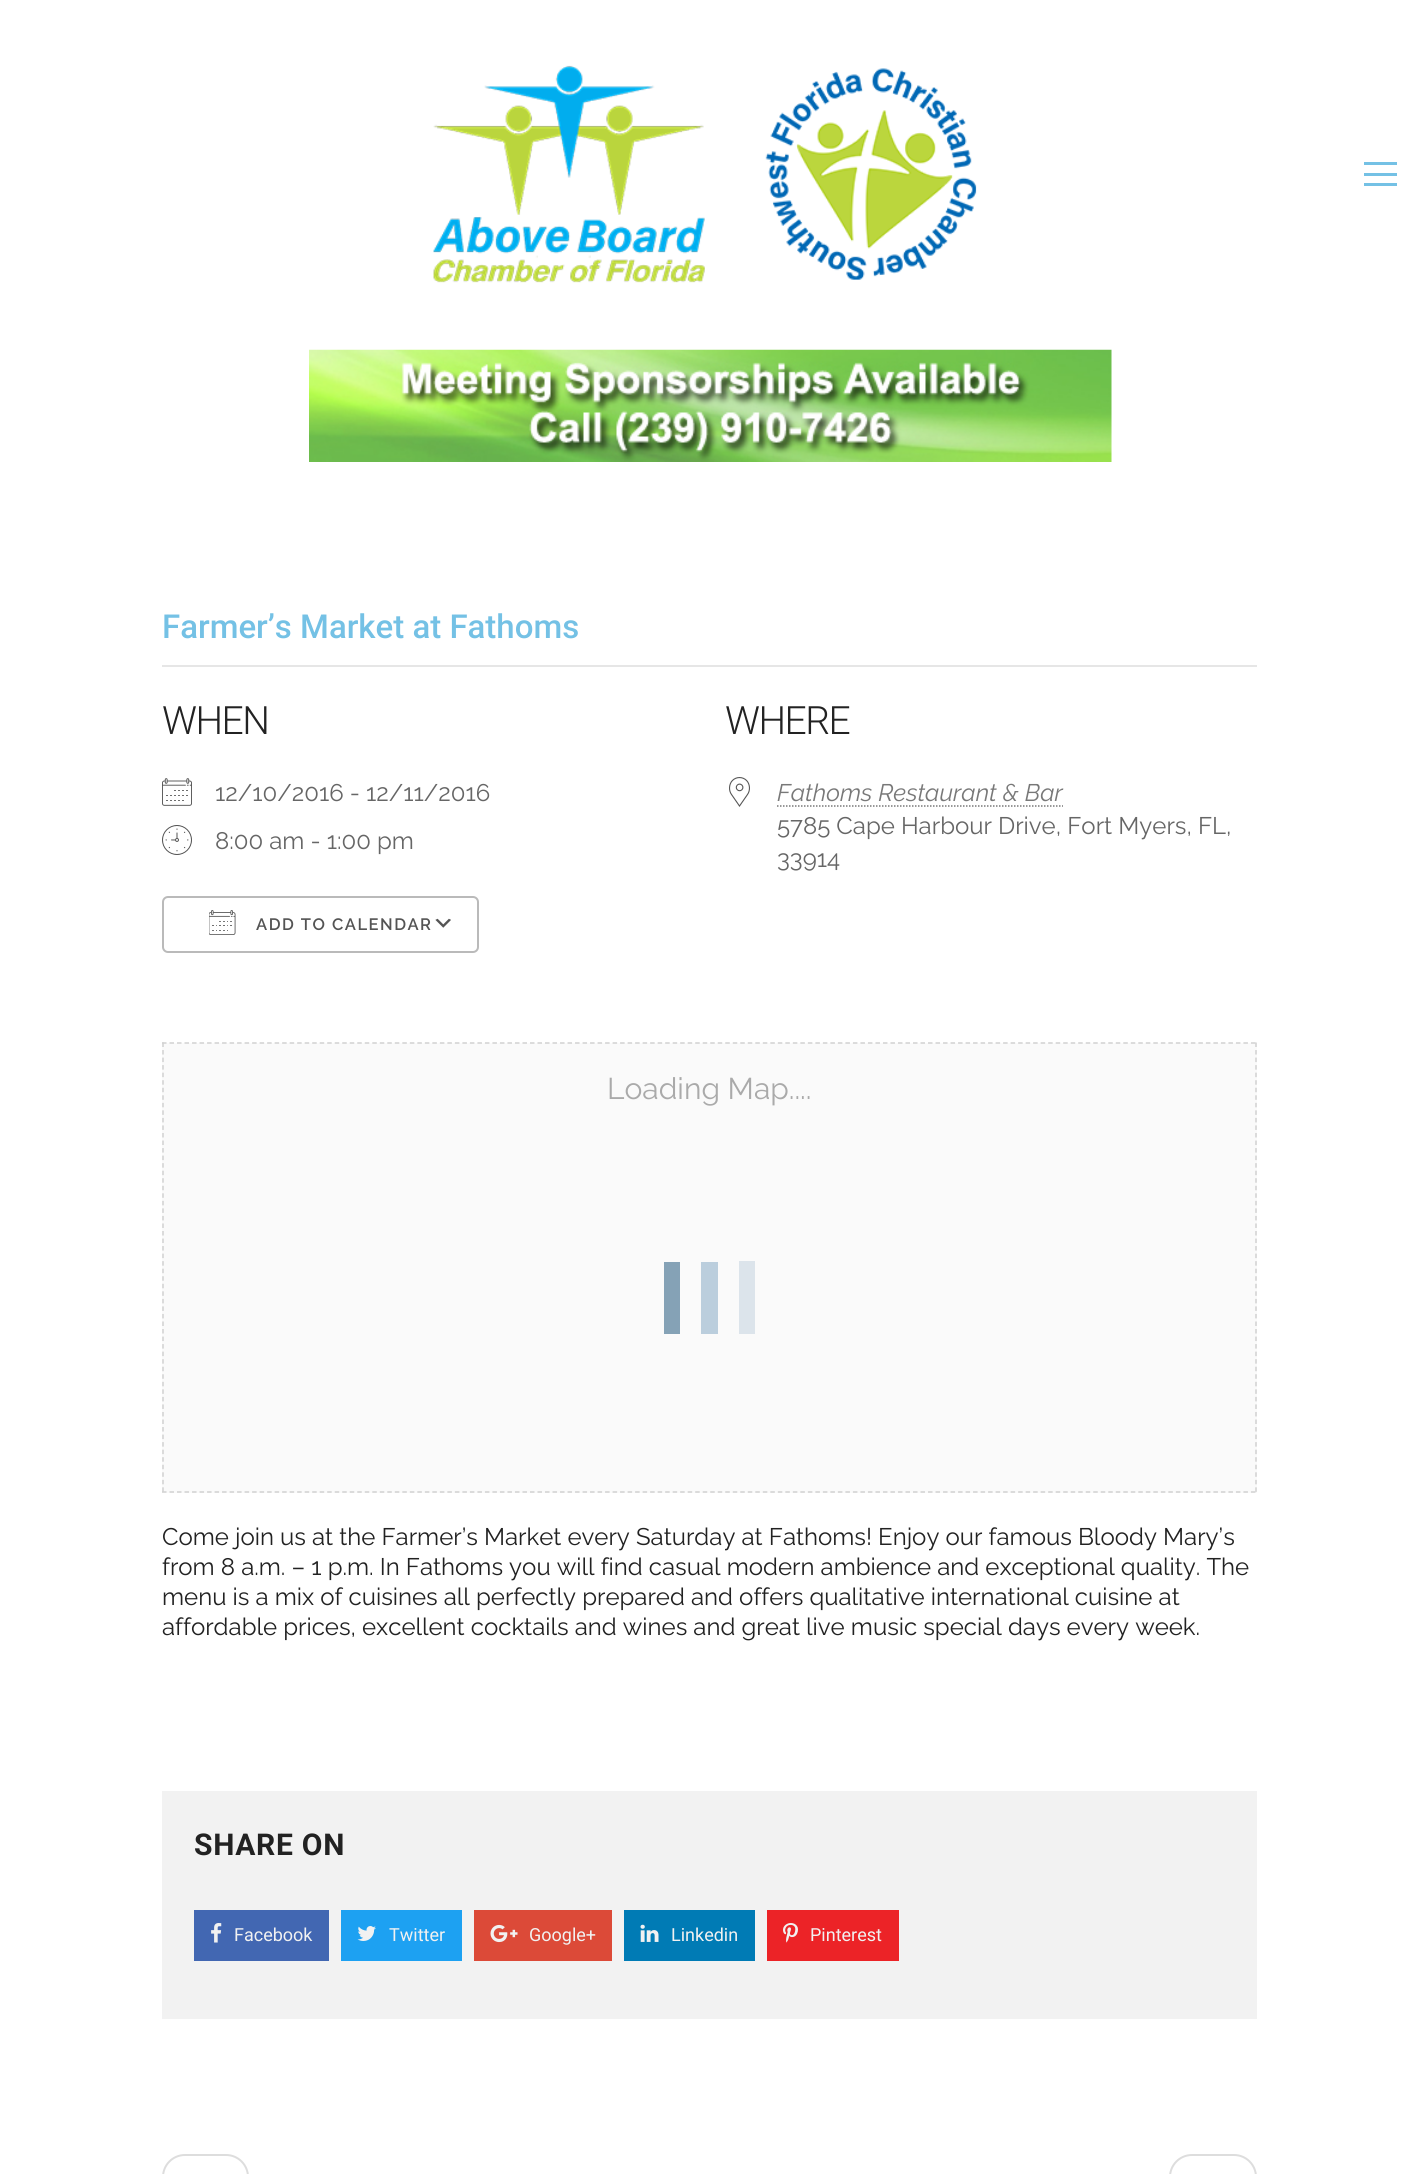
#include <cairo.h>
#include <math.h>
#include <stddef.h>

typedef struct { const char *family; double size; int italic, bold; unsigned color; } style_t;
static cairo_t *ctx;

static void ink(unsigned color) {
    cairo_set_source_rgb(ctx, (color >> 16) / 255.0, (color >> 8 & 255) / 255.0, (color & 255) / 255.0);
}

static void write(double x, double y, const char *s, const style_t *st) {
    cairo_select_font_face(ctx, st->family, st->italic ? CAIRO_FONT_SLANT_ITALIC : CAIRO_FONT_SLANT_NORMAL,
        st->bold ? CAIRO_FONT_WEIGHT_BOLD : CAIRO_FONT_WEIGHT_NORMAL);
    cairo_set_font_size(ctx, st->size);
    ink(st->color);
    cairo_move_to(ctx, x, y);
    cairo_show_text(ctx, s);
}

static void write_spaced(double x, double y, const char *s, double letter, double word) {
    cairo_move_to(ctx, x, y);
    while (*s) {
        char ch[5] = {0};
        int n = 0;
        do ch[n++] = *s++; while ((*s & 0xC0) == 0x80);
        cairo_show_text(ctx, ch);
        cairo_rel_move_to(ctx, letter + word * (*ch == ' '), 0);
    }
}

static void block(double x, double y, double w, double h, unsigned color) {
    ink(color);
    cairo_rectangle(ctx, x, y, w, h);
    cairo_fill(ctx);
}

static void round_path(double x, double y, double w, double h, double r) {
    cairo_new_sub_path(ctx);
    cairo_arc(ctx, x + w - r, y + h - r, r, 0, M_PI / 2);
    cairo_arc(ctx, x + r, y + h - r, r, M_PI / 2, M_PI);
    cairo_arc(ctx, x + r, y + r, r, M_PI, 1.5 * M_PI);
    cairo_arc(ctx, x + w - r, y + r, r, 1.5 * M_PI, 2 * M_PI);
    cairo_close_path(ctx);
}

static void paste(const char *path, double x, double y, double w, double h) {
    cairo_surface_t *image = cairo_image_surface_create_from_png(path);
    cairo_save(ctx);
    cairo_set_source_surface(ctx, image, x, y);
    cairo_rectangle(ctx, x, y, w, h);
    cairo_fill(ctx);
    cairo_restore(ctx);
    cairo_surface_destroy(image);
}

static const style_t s1 = {"Roboto Medium", 33, 0, 0, 0x74c1e5};
static const style_t s2 = {"Raleway", 24, 0, 0, 0x666666};
static const style_t s3 = {"Raleway", 24, 1, 0, 0x787878};
static const style_t s4 = {"Raleway", 30, 0, 0, 0xaaaaaa};
static const style_t s5 = {"Raleway", 24, 0, 0, 0x222222};
static const style_t s6 = {"Roboto", 18, 0, 0, 0xf1f1f1};

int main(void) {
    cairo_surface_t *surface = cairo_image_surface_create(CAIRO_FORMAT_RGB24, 1419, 2174);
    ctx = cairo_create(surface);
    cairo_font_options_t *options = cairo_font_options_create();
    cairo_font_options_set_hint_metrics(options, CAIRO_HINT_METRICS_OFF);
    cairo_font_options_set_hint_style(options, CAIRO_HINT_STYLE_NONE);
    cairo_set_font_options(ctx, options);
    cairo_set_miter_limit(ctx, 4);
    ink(0xffffff);
    cairo_paint(ctx);
    paste("pic1.png", 433, 65, 544, 218);
    block(1364, 162, 33, 3, 0x74c1e5);
    block(1364, 173, 33, 3, 0x74c1e5);
    block(1364, 183, 33, 3, 0x74c1e5);
    paste("pic2.png", 309, 349, 803, 113);
    block(162, 665, 1095, 2, 0xe6e6e6);
    write(162, 638, "Farmer’s Market at Fathoms", &s1);
    cairo_select_font_face(ctx, "Roboto Light", CAIRO_FONT_SLANT_NORMAL, CAIRO_FONT_WEIGHT_NORMAL);
    cairo_set_font_size(ctx, 39);
    ink(0x222222);
    write_spaced(162, 734, "WHEN", -1.5, 0);
    paste("pic3.png", 162, 778, 30, 28);
    write(215, 801, "12/10/2016 - 12/11/2016", &s2);
    paste("pic4.png", 162, 825, 30, 30);
    write(215, 849, "8:00 am - 1:00 pm", &s2);
    paste("pic5.png", 435, 918, 16, 10);
    round_path(163, 897, 315, 55, 5);
    ink(0xbababa);
    cairo_stroke(ctx);
    paste("pic6.png", 209, 910, 27, 25);
    cairo_select_font_face(ctx, "Raleway SemiBold", CAIRO_FONT_SLANT_NORMAL, CAIRO_FONT_WEIGHT_NORMAL);
    cairo_set_font_size(ctx, 16.5);
    ink(0x545454);
    write_spaced(256, 930, "ADD TO CALENDAR", 1.5, 0);
    cairo_select_font_face(ctx, "Roboto Light", CAIRO_FONT_SLANT_NORMAL, CAIRO_FONT_WEIGHT_NORMAL);
    cairo_set_font_size(ctx, 39);
    ink(0x222222);
    write_spaced(725, 734, "WHERE", -1.5, 0);
    paste("pic7.png", 729, 777, 21, 30);
    write(777, 801, "Fathoms Restaurant & Bar", &s3);
    cairo_new_path(ctx);
    cairo_move_to(ctx, 777, 806);
    cairo_line_to(ctx, 1063, 806);
    cairo_set_line_width(ctx, 1.5);
    cairo_set_dash(ctx, (double[]){1.5, 1.5}, 2, 0);
    cairo_stroke(ctx);
    write(777, 834, "5785 Cape Harbour Drive, Fort Myers, FL,", &s2);
    write(777, 867, "33914", &s2);
    block(162, 1043, 1095, 450, 0xfafafa);
    cairo_new_path(ctx);
    cairo_move_to(ctx, 162, 1043);
    cairo_line_to(ctx, 1257, 1043);
    ink(0xd0d0d0);
    cairo_set_dash(ctx, (double[]){4.5, 3.01}, 2, 0);
    cairo_stroke(ctx);
    cairo_new_path(ctx);
    cairo_move_to(ctx, 1256, 1042.5);
    cairo_line_to(ctx, 1256, 1492.5);
    cairo_set_dash(ctx, (double[]){4.5, 3.04}, 2, 0);
    cairo_stroke(ctx);
    cairo_new_path(ctx);
    cairo_move_to(ctx, 162, 1492);
    cairo_line_to(ctx, 1257, 1492);
    cairo_set_dash(ctx, (double[]){4.5, 3.01}, 2, 0);
    cairo_stroke(ctx);
    cairo_new_path(ctx);
    cairo_move_to(ctx, 163, 1042.5);
    cairo_line_to(ctx, 163, 1492.5);
    cairo_set_dash(ctx, (double[]){4.5, 3.04}, 2, 0);
    cairo_stroke(ctx);
    write(607, 1099, "Loading Map....", &s4);
    block(664, 1262, 16, 72, 0x85a2b6);
    block(701, 1262, 17, 72, 0xbbcedd);
    block(739, 1261, 16, 73, 0xdce4eb);
    write(162, 1545, "Come join us at the Farmer’s Market every Saturday at Fathoms! Enjoy our famous Bloody Mary’s", &s5);
    write(162, 1575, "from 8 a.m. – 1 p.m. In Fathoms you will find casual modern ambience and exceptional quality. The", &s5);
    write(162, 1605, "menu is a mix of cuisines all perfectly prepared and offers qualitative international cuisine at", &s5);
    write(162, 1635, "affordable prices, excellent cocktails and wines and great live music special days every week.", &s5);
    block(162, 1791, 1095, 228, 0xf2f2f2);
    cairo_select_font_face(ctx, "Roboto", CAIRO_FONT_SLANT_NORMAL, CAIRO_FONT_WEIGHT_BOLD);
    cairo_set_font_size(ctx, 30);
    ink(0x222222);
    write_spaced(194, 1855, "SHARE ON", 0.75, 0);
    block(194, 1910, 135, 51, 0x4267b2);
    paste("pic8.png", 211, 1923, 11, 20);
    write(234, 1941, "Facebook", &s6);
    block(341, 1910, 121, 51, 0x1da1f2);
    paste("pic9.png", 357, 1926, 19, 15);
    write(389, 1941, "Twitter", &s6);
    block(474, 1910, 138, 51, 0xdc4a38);
    paste("pic10.png", 490, 1924, 28, 19);
    write(529, 1941, "Google+", &s6);
    block(624, 1910, 131, 51, 0x007bb5);
    paste("pic11.png", 640, 1924, 19, 18);
    write(671, 1941, "Linkedin", &s6);
    block(767, 1910, 132, 51, 0xec2327);
    paste("pic12.png", 783, 1923, 15, 20);
    write(810, 1941, "Pinterest", &s6);
    round_path(163, 2155, 85, 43, 22);
    ink(0xdddddd);
    cairo_set_line_width(ctx, 2);
    cairo_set_dash(ctx, NULL, 0, 0);
    cairo_stroke(ctx);
    round_path(1170, 2155, 86, 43, 22);
    cairo_stroke(ctx);
    cairo_surface_write_to_png(surface, "screenshot.png");
    cairo_font_options_destroy(options);
    cairo_destroy(ctx);
    cairo_surface_destroy(surface);
    return 0;
}
